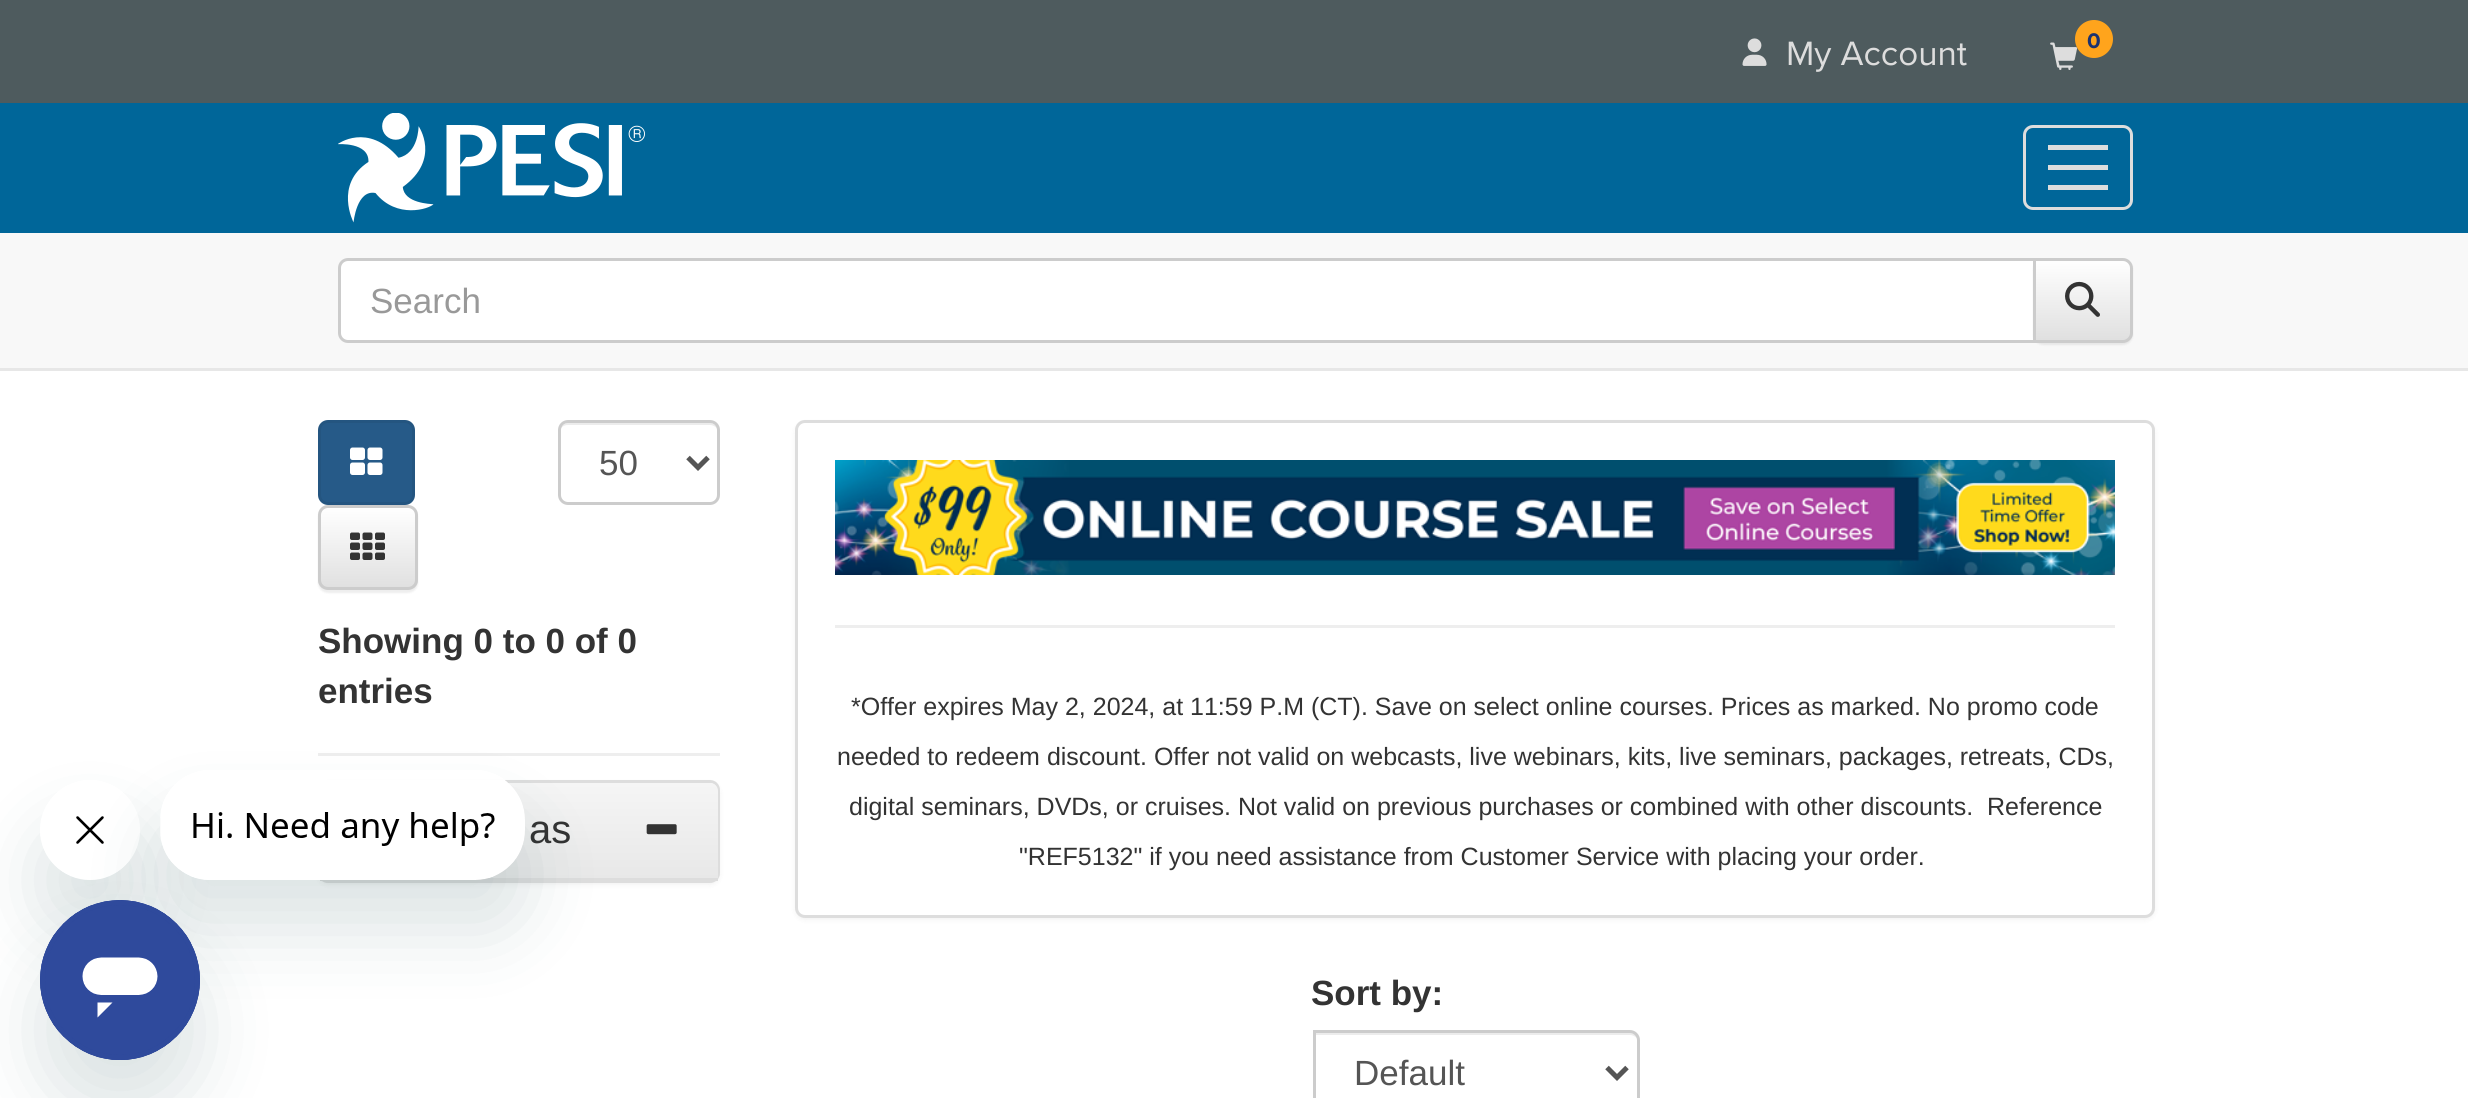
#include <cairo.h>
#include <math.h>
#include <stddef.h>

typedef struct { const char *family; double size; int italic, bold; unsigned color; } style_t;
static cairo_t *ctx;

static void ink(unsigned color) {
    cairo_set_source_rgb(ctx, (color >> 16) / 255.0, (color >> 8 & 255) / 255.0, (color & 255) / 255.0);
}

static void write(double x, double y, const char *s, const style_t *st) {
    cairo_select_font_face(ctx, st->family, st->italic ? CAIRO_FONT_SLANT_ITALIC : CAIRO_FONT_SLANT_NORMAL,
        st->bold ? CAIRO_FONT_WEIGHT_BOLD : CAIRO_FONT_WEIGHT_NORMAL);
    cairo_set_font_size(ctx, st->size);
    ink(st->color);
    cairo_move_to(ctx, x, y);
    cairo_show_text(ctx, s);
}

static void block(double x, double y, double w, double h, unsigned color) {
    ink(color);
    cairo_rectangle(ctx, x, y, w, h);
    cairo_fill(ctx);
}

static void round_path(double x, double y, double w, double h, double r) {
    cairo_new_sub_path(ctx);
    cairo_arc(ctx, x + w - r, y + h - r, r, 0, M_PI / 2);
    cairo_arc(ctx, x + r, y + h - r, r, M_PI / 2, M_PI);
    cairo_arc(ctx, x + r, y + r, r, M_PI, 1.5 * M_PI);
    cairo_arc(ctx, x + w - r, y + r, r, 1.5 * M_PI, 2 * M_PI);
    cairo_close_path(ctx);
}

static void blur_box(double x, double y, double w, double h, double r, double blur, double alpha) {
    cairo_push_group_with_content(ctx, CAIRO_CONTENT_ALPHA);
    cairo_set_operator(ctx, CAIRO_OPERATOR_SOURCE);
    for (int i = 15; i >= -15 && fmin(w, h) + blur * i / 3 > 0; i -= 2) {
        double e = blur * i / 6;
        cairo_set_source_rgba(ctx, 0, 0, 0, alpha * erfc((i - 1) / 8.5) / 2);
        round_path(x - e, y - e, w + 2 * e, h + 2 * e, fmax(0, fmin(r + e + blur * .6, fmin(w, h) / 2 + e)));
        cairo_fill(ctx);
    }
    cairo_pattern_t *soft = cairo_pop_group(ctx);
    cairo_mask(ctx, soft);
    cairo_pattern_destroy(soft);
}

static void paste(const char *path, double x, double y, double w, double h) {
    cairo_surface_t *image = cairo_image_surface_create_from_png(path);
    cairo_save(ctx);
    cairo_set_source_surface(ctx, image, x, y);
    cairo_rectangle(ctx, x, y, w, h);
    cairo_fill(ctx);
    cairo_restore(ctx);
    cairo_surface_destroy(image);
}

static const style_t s1 = {"Proxima Nova", 35, 0, 0, 0xdddddd};
static const style_t s2 = {"Proxima Nova", 22, 0, 1, 0x1b3270};
static const style_t s3 = {"Liberation Sans", 35, 0, 0, 0x999999};
static const style_t s4 = {"Liberation Sans", 35, 0, 0, 0x555555};
static const style_t s5 = {"Liberation Sans", 35, 0, 1, 0x333333};
static const style_t s6 = {"Liberation Sans", 40, 0, 0, 0x333333};
static const style_t s7 = {"Liberation Sans", 25, 0, 0, 0x333333};

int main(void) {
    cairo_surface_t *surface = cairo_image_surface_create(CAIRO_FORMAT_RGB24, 2468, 1098);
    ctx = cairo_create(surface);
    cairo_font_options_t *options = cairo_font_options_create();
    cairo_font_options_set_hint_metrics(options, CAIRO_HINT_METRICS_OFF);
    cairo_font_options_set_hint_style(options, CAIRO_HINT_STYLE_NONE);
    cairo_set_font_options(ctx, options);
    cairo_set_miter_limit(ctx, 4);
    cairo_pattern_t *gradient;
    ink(0xffffff);
    cairo_paint(ctx);
    block(0, 0, 2468, 103, 0x4e5b5e);
    paste("pic1.png", 1742, 38, 25, 28);
    write(1786, 65, "My Account", &s1);
    paste("pic2.png", 2050, 42, 28, 28);
    ink(0xffa41c);
    cairo_arc(ctx, 2094, 39, 19, 0, 2 * M_PI);
    cairo_fill(ctx);
    write(2087, 48, "0", &s2);
    block(0, 103, 2468, 130, 0x006699);
    paste("pic3.png", 338, 113, 307, 110);
    round_path(2024.5, 126.5, 107, 82, 8.5);
    ink(0xdddddd);
    cairo_set_line_width(ctx, 3);
    cairo_stroke(ctx);
    block(2048, 145, 60, 5, 0xdddddd);
    block(2048, 165, 60, 5, 0xdddddd);
    block(2048, 185, 60, 5, 0xdddddd);
    block(0, 233, 2468, 135, 0xf8f8f8);
    block(0, 368, 2468, 3, 0xe7e7e7);
    ink(0xffffff);
    round_path(339.5, 259.5, 1767, 82, 8.5);
    cairo_fill_preserve(ctx);
    ink(0xcccccc);
    cairo_stroke(ctx);
    write(370, 313, "Search", &s3);
    ink(0x000000);
    blur_box(2033, 260, 100, 85, 10, 1, 0.07);
    cairo_save(ctx);
    cairo_new_path(ctx);
    cairo_move_to(ctx, 2033, 258);
    cairo_line_to(ctx, 2123, 258);
    cairo_curve_to(ctx, 2128.5, 258, 2133, 262.5, 2133, 268);
    cairo_line_to(ctx, 2133, 333);
    cairo_curve_to(ctx, 2133, 338.5, 2128.5, 343, 2123, 343);
    cairo_line_to(ctx, 2033, 343);
    cairo_close_path(ctx);
    cairo_clip(ctx);
    gradient = cairo_pattern_create_linear(2083, 260, 2083, 340);
    cairo_pattern_add_color_stop_rgba(gradient, 0, 1, 1, 1, 1);
    cairo_pattern_add_color_stop_rgba(gradient, 1, 0.878, 0.878, 0.878, 1);
    cairo_set_source(ctx, gradient);
    cairo_pattern_destroy(gradient);
    cairo_rectangle(ctx, 2036, 260, 97, 80);
    cairo_fill(ctx);
    cairo_restore(ctx);
    cairo_new_path(ctx);
    cairo_move_to(ctx, 2034.5, 259.5);
    cairo_line_to(ctx, 2123, 259.5);
    cairo_curve_to(ctx, 2127.5, 259.5, 2131.5, 263.5, 2131.5, 268);
    cairo_line_to(ctx, 2131.5, 333);
    cairo_curve_to(ctx, 2131.5, 337.5, 2127.5, 341.5, 2123, 341.5);
    cairo_line_to(ctx, 2034.5, 341.5);
    cairo_close_path(ctx);
    ink(0xcccccc);
    cairo_stroke(ctx);
    paste("pic4.png", 2065, 281, 35, 36);
    ink(0x265a88);
    round_path(319.5, 421.5, 94, 82, 8.5);
    cairo_fill_preserve(ctx);
    ink(0x245580);
    cairo_stroke(ctx);
    paste("pic5.png", 350, 447, 33, 28);
    ink(0x000000);
    blur_box(318, 508, 100, 85, 10, 1, 0.07);
    cairo_save(ctx);
    round_path(318, 505, 100, 85, 10);
    cairo_clip(ctx);
    gradient = cairo_pattern_create_linear(368, 508, 368, 588);
    cairo_pattern_add_color_stop_rgba(gradient, 0, 1, 1, 1, 1);
    cairo_pattern_add_color_stop_rgba(gradient, 1, 0.878, 0.878, 0.878, 1);
    cairo_set_source(ctx, gradient);
    cairo_pattern_destroy(gradient);
    cairo_rectangle(ctx, 318, 508, 100, 80);
    cairo_fill(ctx);
    cairo_restore(ctx);
    round_path(319.5, 506.5, 97, 82, 8.5);
    ink(0xcccccc);
    cairo_stroke(ctx);
    paste("pic6.png", 350, 532, 35, 28);
    ink(0xececec);
    cairo_new_path(ctx);
    cairo_move_to(ctx, 568, 425);
    cairo_line_to(ctx, 710, 425);
    cairo_curve_to(ctx, 714, 425, 718, 428, 718, 432);
    cairo_curve_to(ctx, 718, 417, 693, 423, 686, 423);
    cairo_line_to(ctx, 592, 423);
    cairo_curve_to(ctx, 585, 423, 560, 417, 560, 432);
    cairo_curve_to(ctx, 560, 428, 563, 425, 568, 425);
    cairo_close_path(ctx);
    cairo_fill(ctx);
    round_path(559.5, 421.5, 159, 82, 8.5);
    ink(0xcccccc);
    cairo_stroke(ctx);
    cairo_new_path(ctx);
    cairo_move_to(ctx, 688, 457.5);
    cairo_line_to(ctx, 698, 467.5);
    cairo_line_to(ctx, 708, 457.5);
    ink(0x555555);
    cairo_set_line_width(ctx, 5);
    cairo_stroke(ctx);
    write(599, 475, "50", &s4);
    write(318, 653, "Showing 0 to 0 of 0", &s5);
    write(318, 703, "entries", &s5);
    block(318, 753, 402, 3, 0xeeeeee);
    ink(0x000000);
    blur_box(318, 783, 402, 102, 10, 2.5, 0.05);
    round_path(319.5, 781.5, 399, 100, 8.5);
    ink(0xdddddd);
    cairo_set_line_width(ctx, 3);
    cairo_stroke(ctx);
    gradient = cairo_pattern_create_linear(519, 783, 519, 878);
    cairo_pattern_add_color_stop_rgba(gradient, 0, 0.961, 0.961, 0.961, 1);
    cairo_pattern_add_color_stop_rgba(gradient, 1, 0.91, 0.91, 0.91, 1);
    cairo_set_source(ctx, gradient);
    cairo_pattern_destroy(gradient);
    cairo_new_path(ctx);
    cairo_move_to(ctx, 328, 783);
    cairo_line_to(ctx, 710, 783);
    cairo_curve_to(ctx, 714.5, 783, 718, 786.5, 718, 791);
    cairo_line_to(ctx, 718, 878);
    cairo_line_to(ctx, 320, 878);
    cairo_line_to(ctx, 320, 791);
    cairo_curve_to(ctx, 320, 786.5, 323.5, 783, 328, 783);
    cairo_close_path(ctx);
    cairo_fill(ctx);
    block(320, 878, 398, 3, 0xdddddd);
    write(529, 843, "as", &s6);
    paste("pic7.png", 646, 824, 31, 11);
    ink(0x000000);
    blur_box(795, 423, 1360, 497, 10, 2.5, 0.05);
    ink(0xffffff);
    round_path(796.5, 421.5, 1357, 495, 8.5);
    cairo_fill_preserve(ctx);
    ink(0xdddddd);
    cairo_stroke(ctx);
    paste("pic8.png", 835, 460, 1280, 115);
    block(835, 625, 1280, 3, 0xeeeeee);
    write(851, 715, "*Offer expires May 2, 2024, at 11:59 P.M (CT). Save on select online courses. Prices as marked. No promo code", &s7);
    write(837, 765, "needed to redeem discount. Offer not valid on webcasts, live webinars, kits, live seminars, packages, retreats, CDs,", &s7);
    write(849, 815, "digital seminars, DVDs, or cruises. Not valid on previous purchases or combined with other discounts.  Reference", &s7);
    write(1019, 865, "\"REF5132\" if you need assistance from Customer Service with placing your order.", &s7);
    write(1311, 1005, "Sort by:", &s5);
    ink(0xececec);
    cairo_new_path(ctx);
    cairo_move_to(ctx, 1315, 1035);
    cairo_line_to(ctx, 1630, 1035);
    cairo_curve_to(ctx, 1634, 1035, 1638, 1038, 1638, 1042);
    cairo_curve_to(ctx, 1638, 1038, 1636, 1034, 1632, 1033);
    cairo_line_to(ctx, 1315, 1033);
    cairo_close_path(ctx);
    cairo_fill(ctx);
    cairo_new_path(ctx);
    cairo_move_to(ctx, 1314.5, 1031.5);
    cairo_line_to(ctx, 1630, 1031.5);
    cairo_curve_to(ctx, 1634.5, 1031.5, 1638.5, 1035.5, 1638.5, 1040);
    cairo_line_to(ctx, 1638.5, 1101);
    cairo_curve_to(ctx, 1638.5, 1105.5, 1634.5, 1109.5, 1630, 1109.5);
    cairo_line_to(ctx, 1314.5, 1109.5);
    cairo_close_path(ctx);
    ink(0xcccccc);
    cairo_stroke(ctx);
    cairo_new_path(ctx);
    cairo_move_to(ctx, 1607, 1067.5);
    cairo_line_to(ctx, 1617, 1077.5);
    cairo_line_to(ctx, 1627, 1067.5);
    ink(0x555555);
    cairo_set_line_width(ctx, 5);
    cairo_stroke(ctx);
    write(1354, 1085, "Default", &s4);
    cairo_save(ctx);
    cairo_set_fill_rule(ctx, CAIRO_FILL_RULE_EVEN_ODD);
    cairo_new_path(ctx);
    cairo_move_to(ctx, 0, 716);
    cairo_line_to(ctx, 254, 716);
    cairo_line_to(ctx, 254, 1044);
    cairo_line_to(ctx, 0, 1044);
    cairo_close_path(ctx);
    cairo_move_to(ctx, 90, 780);
    cairo_curve_to(ctx, 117.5, 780, 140, 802.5, 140, 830);
    cairo_curve_to(ctx, 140, 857.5, 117.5, 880, 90, 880);
    cairo_curve_to(ctx, 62.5, 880, 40, 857.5, 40, 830);
    cairo_curve_to(ctx, 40, 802.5, 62.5, 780, 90, 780);
    cairo_close_path(ctx);
    cairo_clip(ctx);
    ink(0x17494d);
    blur_box(40, 830, 100, 100, 50, 37.5, 0.15);
    cairo_restore(ctx);
    paste("pic10.png", 76, 816, 28, 28);
    cairo_save(ctx);
    cairo_set_fill_rule(ctx, CAIRO_FILL_RULE_EVEN_ODD);
    cairo_new_path(ctx);
    cairo_move_to(ctx, 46, 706);
    cairo_line_to(ctx, 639, 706);
    cairo_line_to(ctx, 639, 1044);
    cairo_line_to(ctx, 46, 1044);
    cairo_close_path(ctx);
    cairo_move_to(ctx, 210, 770);
    cairo_line_to(ctx, 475, 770);
    cairo_curve_to(ctx, 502.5, 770, 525, 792.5, 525, 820);
    cairo_line_to(ctx, 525, 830);
    cairo_curve_to(ctx, 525, 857.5, 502.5, 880, 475, 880);
    cairo_line_to(ctx, 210, 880);
    cairo_curve_to(ctx, 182.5, 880, 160, 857.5, 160, 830);
    cairo_line_to(ctx, 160, 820);
    cairo_curve_to(ctx, 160, 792.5, 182.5, 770, 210, 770);
    cairo_close_path(ctx);
    cairo_clip(ctx);
    ink(0x17494d);
    blur_box(160, 820, 365, 110, 50, 37.5, 0.15);
    cairo_restore(ctx);
    paste("pic9.png", 161, 780, 364, 100);
    ink(0x17494d);
    blur_box(40, 950, 160, 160, 80, 37.5, 0.15);
    paste("pic11.png", 40, 900, 160, 160);
    cairo_surface_write_to_png(surface, "screenshot.png");
    cairo_font_options_destroy(options);
    cairo_destroy(ctx);
    cairo_surface_destroy(surface);
    return 0;
}
